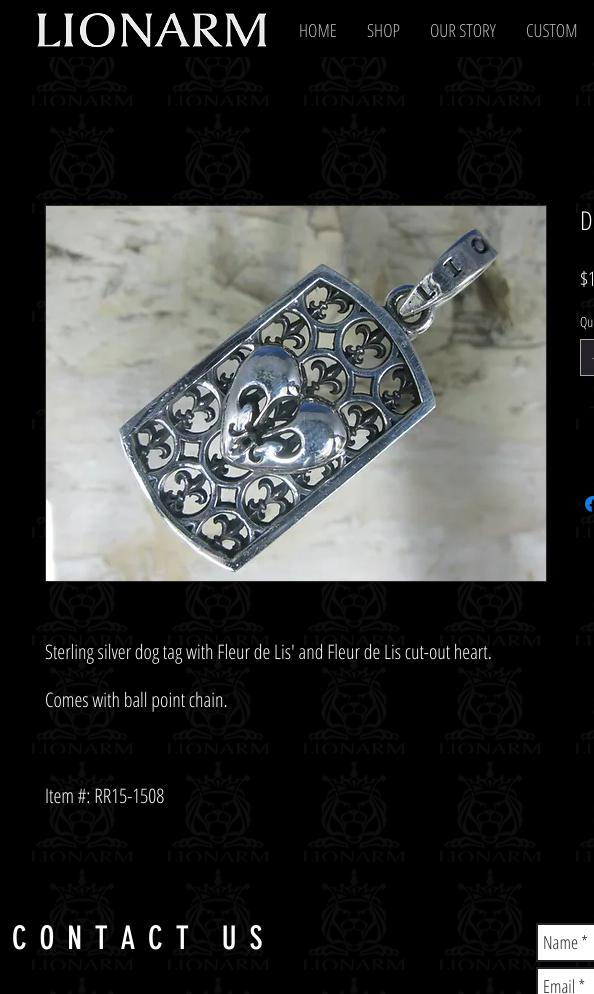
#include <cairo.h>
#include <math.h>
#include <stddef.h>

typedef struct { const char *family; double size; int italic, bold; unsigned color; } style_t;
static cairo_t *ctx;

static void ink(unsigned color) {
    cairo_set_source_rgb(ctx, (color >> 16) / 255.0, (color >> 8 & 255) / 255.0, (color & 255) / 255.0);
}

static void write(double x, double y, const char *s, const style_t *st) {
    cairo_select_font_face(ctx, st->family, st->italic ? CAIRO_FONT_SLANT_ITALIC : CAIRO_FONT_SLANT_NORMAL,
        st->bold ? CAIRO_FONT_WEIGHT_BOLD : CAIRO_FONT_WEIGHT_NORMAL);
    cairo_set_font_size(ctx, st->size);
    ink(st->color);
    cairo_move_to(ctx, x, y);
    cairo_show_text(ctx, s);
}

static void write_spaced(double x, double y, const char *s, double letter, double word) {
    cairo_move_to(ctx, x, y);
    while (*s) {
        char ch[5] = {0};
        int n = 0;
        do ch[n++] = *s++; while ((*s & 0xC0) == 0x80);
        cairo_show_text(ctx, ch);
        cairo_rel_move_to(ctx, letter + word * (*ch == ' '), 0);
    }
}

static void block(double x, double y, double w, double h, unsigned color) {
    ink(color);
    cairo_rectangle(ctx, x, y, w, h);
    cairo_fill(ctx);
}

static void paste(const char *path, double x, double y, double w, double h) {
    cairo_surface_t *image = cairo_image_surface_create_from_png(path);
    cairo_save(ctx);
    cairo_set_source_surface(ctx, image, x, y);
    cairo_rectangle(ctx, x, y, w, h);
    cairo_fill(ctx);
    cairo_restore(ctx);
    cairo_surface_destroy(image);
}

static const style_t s1 = {"Open Sans Condensed Light", 18, 0, 0, 0xbdbdbd};
static const style_t s2 = {"Open Sans Condensed Light", 26, 0, 0, 0xffffff};
static const style_t s3 = {"Open Sans Condensed Light", 20, 0, 0, 0xffffff};
static const style_t s4 = {"Open Sans Condensed Light", 14, 0, 0, 0xffffff};
static const style_t s5 = {"Open Sans Condensed Light", 18, 0, 0, 0x252128};

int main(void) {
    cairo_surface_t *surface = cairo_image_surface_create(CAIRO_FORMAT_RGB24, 594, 994);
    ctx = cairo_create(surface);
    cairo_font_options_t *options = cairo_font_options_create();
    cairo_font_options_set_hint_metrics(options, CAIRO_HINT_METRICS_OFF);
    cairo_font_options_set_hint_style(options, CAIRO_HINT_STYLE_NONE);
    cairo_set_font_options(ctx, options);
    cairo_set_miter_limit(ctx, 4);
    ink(0x000000);
    cairo_paint(ctx);
    paste("pic1.png", 37, 13, 229, 34);
    write(299, 37, "HOME", &s1);
    write(367, 37, "SHOP", &s1);
    write(430, 37, "OUR STORY", &s1);
    write(526, 37, "CUSTOM", &s1);
    paste("pic4.png", 31, 57, 563, 937);
    cairo_set_source_rgba(ctx, 0, 0, 0, 0.56);
    cairo_rectangle(ctx, 31, 57, 563, 796);
    cairo_fill(ctx);
    write(580, 230, "D", &s2);
    write(580, 286, "$1", &s3);
    write(580, 327, "Qu", &s4);
    ink(0x252128);
    cairo_rectangle(ctx, 580.5, 339.5, 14, 36);
    cairo_fill_preserve(ctx);
    ink(0xa8a6a9);
    cairo_set_line_width(ctx, 1);
    cairo_stroke(ctx);
    block(592, 358, 2, 1, 0x767478);
    cairo_set_source_rgba(ctx, 0, 0, 0, 0.92);
    cairo_rectangle(ctx, 581, 408, 13, 22);
    cairo_fill(ctx);
    paste("pic2.png", 585, 496, 9, 16);
    cairo_rectangle(ctx, 45.5, 205.5, 501, 376);
    cairo_set_source_rgba(ctx, 0.184, 0.169, 0.196, 0.94);
    cairo_stroke(ctx);
    paste("pic3.png", 46, 206, 500, 375);
    write(45, 659, "Sterling silver dog tag with Fleur de Lis' and Fleur de Lis cut-out heart.", &s3);
    write(45, 707, "Comes with ball point chain.", &s3);
    write(45, 803, "Item #: RR15-1508", &s3);
    cairo_set_source_rgba(ctx, 0, 0, 0, 0.6);
    cairo_rectangle(ctx, 31, 853, 563, 141);
    cairo_fill(ctx);
    cairo_select_font_face(ctx, "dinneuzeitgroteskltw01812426", CAIRO_FONT_SLANT_NORMAL, CAIRO_FONT_WEIGHT_NORMAL);
    cairo_set_font_size(ctx, 32);
    ink(0xffffff);
    write_spaced(12, 949, "CONTACT US", 12.75, 0);
    cairo_rectangle(ctx, 537, 924, 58, 37);
    cairo_fill_preserve(ctx);
    ink(0x252128);
    cairo_set_line_width(ctx, 2);
    cairo_stroke(ctx);
    write(543, 949, "Name *", &s5);
    ink(0xffffff);
    cairo_rectangle(ctx, 537, 968, 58, 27);
    cairo_fill_preserve(ctx);
    ink(0x252128);
    cairo_stroke(ctx);
    write(543, 993, "Email *", &s5);
    cairo_surface_write_to_png(surface, "screenshot.png");
    cairo_font_options_destroy(options);
    cairo_destroy(ctx);
    cairo_surface_destroy(surface);
    return 0;
}
